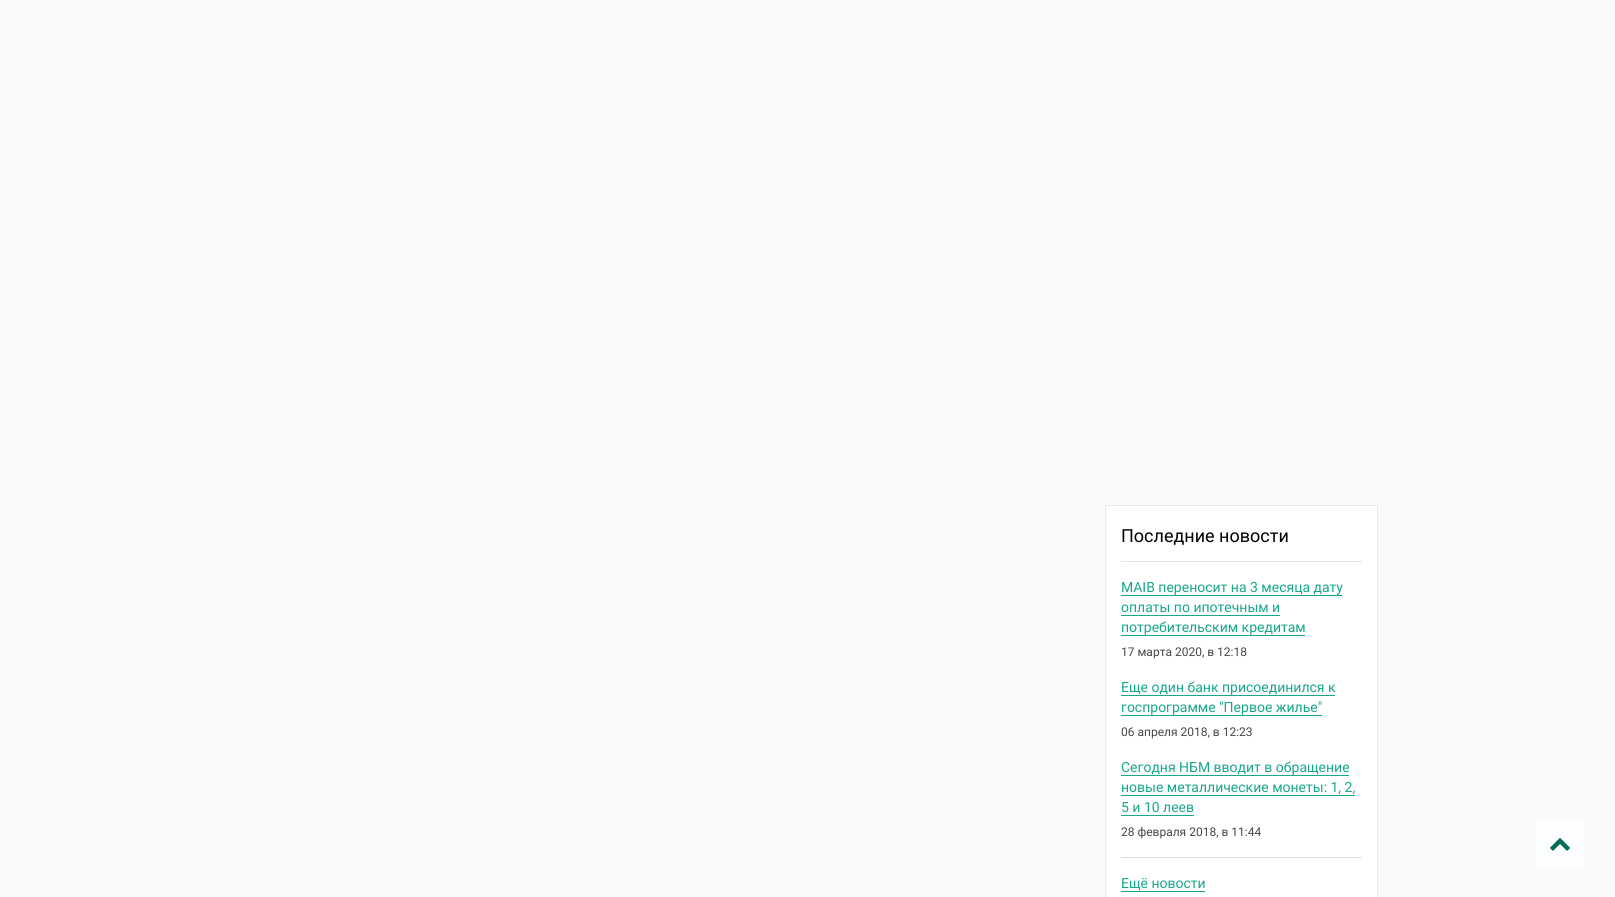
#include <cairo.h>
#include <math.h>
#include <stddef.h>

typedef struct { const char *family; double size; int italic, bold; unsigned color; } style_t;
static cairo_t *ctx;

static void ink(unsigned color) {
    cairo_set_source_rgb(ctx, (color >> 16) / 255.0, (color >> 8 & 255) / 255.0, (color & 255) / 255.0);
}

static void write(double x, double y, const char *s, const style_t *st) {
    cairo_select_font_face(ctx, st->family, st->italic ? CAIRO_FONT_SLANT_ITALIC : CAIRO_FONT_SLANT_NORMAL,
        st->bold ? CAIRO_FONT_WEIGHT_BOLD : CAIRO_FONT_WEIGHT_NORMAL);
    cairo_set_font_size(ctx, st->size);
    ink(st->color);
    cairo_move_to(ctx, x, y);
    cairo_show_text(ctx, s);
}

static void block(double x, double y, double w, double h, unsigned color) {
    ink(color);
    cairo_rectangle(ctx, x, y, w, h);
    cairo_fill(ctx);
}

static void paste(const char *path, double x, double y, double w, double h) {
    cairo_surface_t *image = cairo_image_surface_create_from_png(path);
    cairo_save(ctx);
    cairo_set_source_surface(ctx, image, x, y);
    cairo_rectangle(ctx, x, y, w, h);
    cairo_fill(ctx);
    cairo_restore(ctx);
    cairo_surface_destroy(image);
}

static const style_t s1 = {"Roboto", 18, 0, 0, 0x010101};
static const style_t s2 = {"Roboto", 14, 0, 0, 0x17a78b};
static const style_t s3 = {"Roboto", 12, 0, 0, 0x474747};

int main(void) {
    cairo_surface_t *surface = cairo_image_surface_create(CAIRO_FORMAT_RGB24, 1615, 897);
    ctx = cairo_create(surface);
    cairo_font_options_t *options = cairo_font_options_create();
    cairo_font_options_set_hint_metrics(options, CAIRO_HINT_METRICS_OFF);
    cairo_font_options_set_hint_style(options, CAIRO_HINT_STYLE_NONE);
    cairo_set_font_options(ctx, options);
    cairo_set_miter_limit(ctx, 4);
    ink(0xf8fafc);
    cairo_paint(ctx);
    ink(0xffffff);
    cairo_rectangle(ctx, 1105.5, 505.5, 272, 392);
    cairo_fill_preserve(ctx);
    ink(0xe7ebec);
    cairo_set_line_width(ctx, 1);
    cairo_stroke(ctx);
    block(1121, 561, 241, 1, 0xe5e5e5);
    write(1121, 542, "Последние новости", &s1);
    write(1121, 592, "MAIB переносит на 3 месяца дату", &s2);
    block(1121, 595, 221, 1, 0x17a78b);
    write(1121, 612, "оплаты по ипотечным и", &s2);
    block(1121, 615, 159, 1, 0x17a78b);
    write(1121, 632, "потребительским кредитам", &s2);
    block(1121, 635, 184, 1, 0x17a78b);
    write(1121, 656, "17 марта 2020, в 12:18", &s3);
    write(1121, 692, "Еще один банк присоединился к", &s2);
    block(1121, 695, 214, 1, 0x17a78b);
    write(1121, 712, "госпрограмме \"Первое жилье\"", &s2);
    block(1121, 715, 201, 1, 0x17a78b);
    write(1121, 736, "06 апреля 2018, в 12:23", &s3);
    block(1121, 857, 241, 1, 0xdfdfdf);
    write(1121, 772, "Сегодня НБМ вводит в обращение", &s2);
    block(1121, 775, 228, 1, 0x17a78b);
    write(1121, 792, "новые металлические монеты: 1, 2,", &s2);
    block(1121, 795, 234, 1, 0x17a78b);
    write(1121, 812, "5 и 10 леев", &s2);
    block(1121, 815, 73, 1, 0x17a78b);
    write(1121, 836, "28 февраля 2018, в 11:44", &s3);
    write(1121, 888, "Ещё новости", &s2);
    block(1121, 891, 84, 1, 0x17a78b);
    block(1535, 819, 50, 48, 0xfcfdfe);
    paste("pic1.png", 1550, 838, 20, 13);
    cairo_surface_write_to_png(surface, "screenshot.png");
    cairo_font_options_destroy(options);
    cairo_destroy(ctx);
    cairo_surface_destroy(surface);
    return 0;
}
